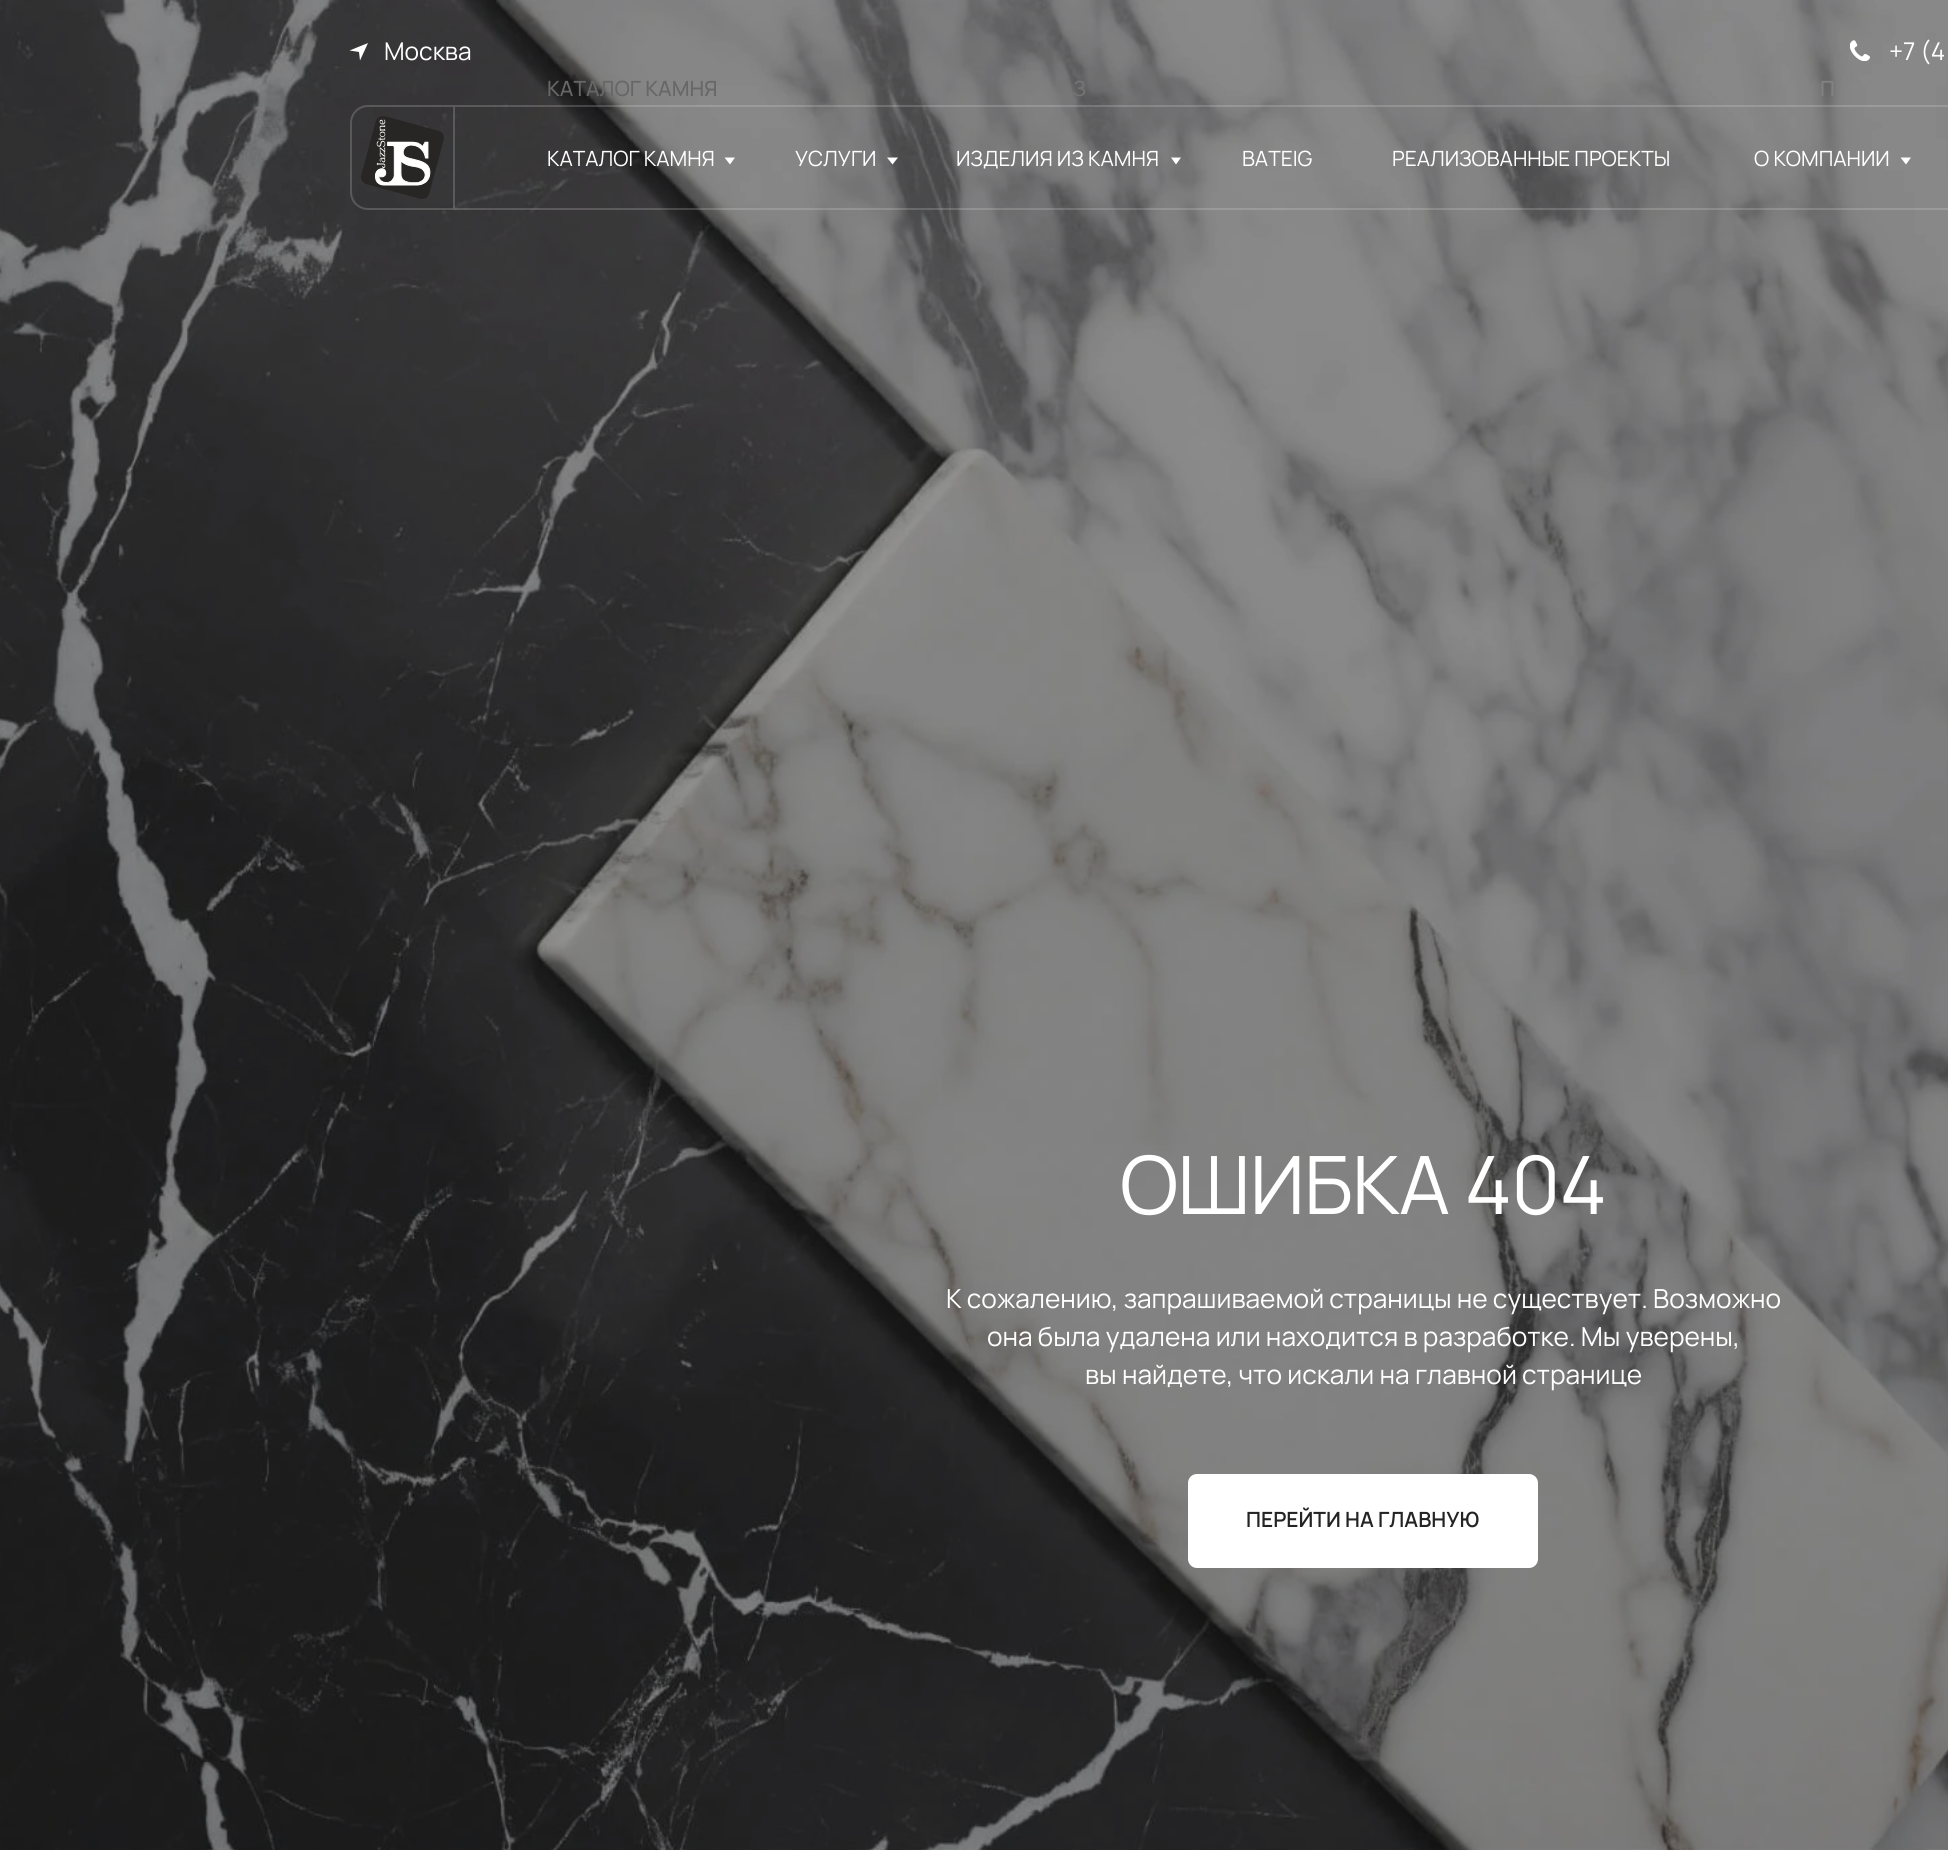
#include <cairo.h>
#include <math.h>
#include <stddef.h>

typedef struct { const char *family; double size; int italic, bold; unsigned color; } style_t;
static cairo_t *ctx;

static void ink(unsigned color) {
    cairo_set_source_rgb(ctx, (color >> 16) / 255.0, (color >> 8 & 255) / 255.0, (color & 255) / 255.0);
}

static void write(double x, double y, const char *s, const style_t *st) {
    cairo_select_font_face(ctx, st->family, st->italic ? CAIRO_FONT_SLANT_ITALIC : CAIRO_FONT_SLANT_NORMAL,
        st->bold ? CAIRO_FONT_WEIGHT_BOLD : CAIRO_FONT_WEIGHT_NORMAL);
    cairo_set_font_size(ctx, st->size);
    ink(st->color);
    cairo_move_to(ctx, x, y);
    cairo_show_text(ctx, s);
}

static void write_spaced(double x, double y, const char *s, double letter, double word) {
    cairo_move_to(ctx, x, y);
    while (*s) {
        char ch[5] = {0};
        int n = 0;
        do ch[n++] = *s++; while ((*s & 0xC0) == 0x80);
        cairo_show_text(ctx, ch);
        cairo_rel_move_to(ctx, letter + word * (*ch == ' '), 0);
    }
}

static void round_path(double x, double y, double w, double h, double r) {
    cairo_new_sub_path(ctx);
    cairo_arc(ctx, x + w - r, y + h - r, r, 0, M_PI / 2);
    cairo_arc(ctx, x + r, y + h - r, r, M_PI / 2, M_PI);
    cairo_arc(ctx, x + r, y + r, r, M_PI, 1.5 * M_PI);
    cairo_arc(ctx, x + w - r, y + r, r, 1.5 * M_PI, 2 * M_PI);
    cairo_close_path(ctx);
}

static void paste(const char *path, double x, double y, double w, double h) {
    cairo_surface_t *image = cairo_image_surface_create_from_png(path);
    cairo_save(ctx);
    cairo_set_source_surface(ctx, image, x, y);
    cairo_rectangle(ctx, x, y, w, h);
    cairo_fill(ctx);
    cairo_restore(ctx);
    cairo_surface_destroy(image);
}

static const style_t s1 = {"Manrope", 24.5, 0, 0, 0xffffff};
static const style_t s2 = {"Manrope", 21, 0, 0, 0xffffff};
static const style_t s3 = {"Manrope Medium", 21, 0, 0, 0x676767};
static const style_t s4 = {"Manrope Medium", 21, 0, 0, 0x737374};
static const style_t s5 = {"Manrope Medium", 21, 0, 0, 0x828282};
static const style_t s6 = {"Manrope", 26.25, 0, 0, 0xffffff};
static const style_t s7 = {"Manrope SemiBold", 21, 0, 0, 0x242424};

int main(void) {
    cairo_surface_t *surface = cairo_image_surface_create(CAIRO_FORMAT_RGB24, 1948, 1850);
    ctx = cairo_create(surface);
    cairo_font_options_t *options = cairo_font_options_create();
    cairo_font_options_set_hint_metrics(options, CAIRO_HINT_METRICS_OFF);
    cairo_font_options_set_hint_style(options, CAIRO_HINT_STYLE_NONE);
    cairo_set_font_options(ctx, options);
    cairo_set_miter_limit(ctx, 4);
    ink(0xffffff);
    cairo_paint(ctx);
    paste("pic3.png", 0, 0, 1948, 1850);
    ink(0xffffff);
    cairo_new_path(ctx);
    cairo_move_to(ctx, 368, 43);
    cairo_line_to(ctx, 349.5, 50.5);
    cairo_line_to(ctx, 359, 52);
    cairo_line_to(ctx, 360, 60.5);
    cairo_close_path(ctx);
    cairo_fill(ctx);
    write(384, 60, "Москва", &s1);
    paste("pic1.png", 1850, 40, 20, 21);
    write(1889, 60, "+7 (4", &s1);
    round_path(351, 106, 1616, 103, 17);
    cairo_set_source_rgba(ctx, 0.914, 0.914, 0.914, 0.2);
    cairo_stroke(ctx);
    paste("pic2.png", 361, 116, 83, 83);
    cairo_rectangle(ctx, 453, 107, 2, 101);
    cairo_fill(ctx);
    write(547, 166, "КАТАЛОГ КАМНЯ", &s2);
    cairo_new_path(ctx);
    cairo_move_to(ctx, 724.5, 157.5);
    cairo_line_to(ctx, 735, 157.5);
    cairo_line_to(ctx, 730, 164.5);
    cairo_close_path(ctx);
    cairo_fill(ctx);
    write(795, 166, "УСЛУГИ", &s2);
    cairo_new_path(ctx);
    cairo_move_to(ctx, 887, 157.5);
    cairo_line_to(ctx, 898, 157.5);
    cairo_line_to(ctx, 892.5, 164.5);
    cairo_close_path(ctx);
    cairo_fill(ctx);
    write(956, 166, "ИЗДЕЛИЯ ИЗ КАМНЯ", &s2);
    cairo_new_path(ctx);
    cairo_move_to(ctx, 1171, 157.5);
    cairo_line_to(ctx, 1181, 157.5);
    cairo_line_to(ctx, 1176, 164.5);
    cairo_close_path(ctx);
    cairo_fill(ctx);
    write(1242, 166, "BATEIG", &s2);
    write(1392, 166, "РЕАЛИЗОВАННЫЕ ПРОЕКТЫ", &s2);
    write(1754, 166, "О КОМПАНИИ", &s2);
    cairo_new_path(ctx);
    cairo_move_to(ctx, 1900.5, 157.5);
    cairo_line_to(ctx, 1911, 157.5);
    cairo_line_to(ctx, 1906, 164.5);
    cairo_close_path(ctx);
    cairo_fill(ctx);
    write(547, 96, "КАТАЛОГ КАМНЯ", &s3);
    write(1073, 96, "З", &s4);
    write(1820, 96, "П", &s5);
    cairo_select_font_face(ctx, "Manrope", CAIRO_FONT_SLANT_NORMAL, CAIRO_FONT_WEIGHT_NORMAL);
    cairo_set_font_size(ctx, 80.5);
    ink(0xffffff);
    write_spaced(1120, 1214, "ОШИБКА 404", -0.75, 0);
    write(946, 1308, "К сожалению, запрашиваемой страницы не существует. Возможно", &s6);
    write(987, 1346, "она была удалена или находится в разработке. Мы уверены,", &s6);
    write(1085, 1384, "вы найдете, что искали на главной странице", &s6);
    round_path(1188, 1474, 350, 94, 9);
    cairo_fill(ctx);
    write(1246, 1527, "ПЕРЕЙТИ НА ГЛАВНУЮ", &s7);
    cairo_surface_write_to_png(surface, "screenshot.png");
    cairo_font_options_destroy(options);
    cairo_destroy(ctx);
    cairo_surface_destroy(surface);
    return 0;
}
